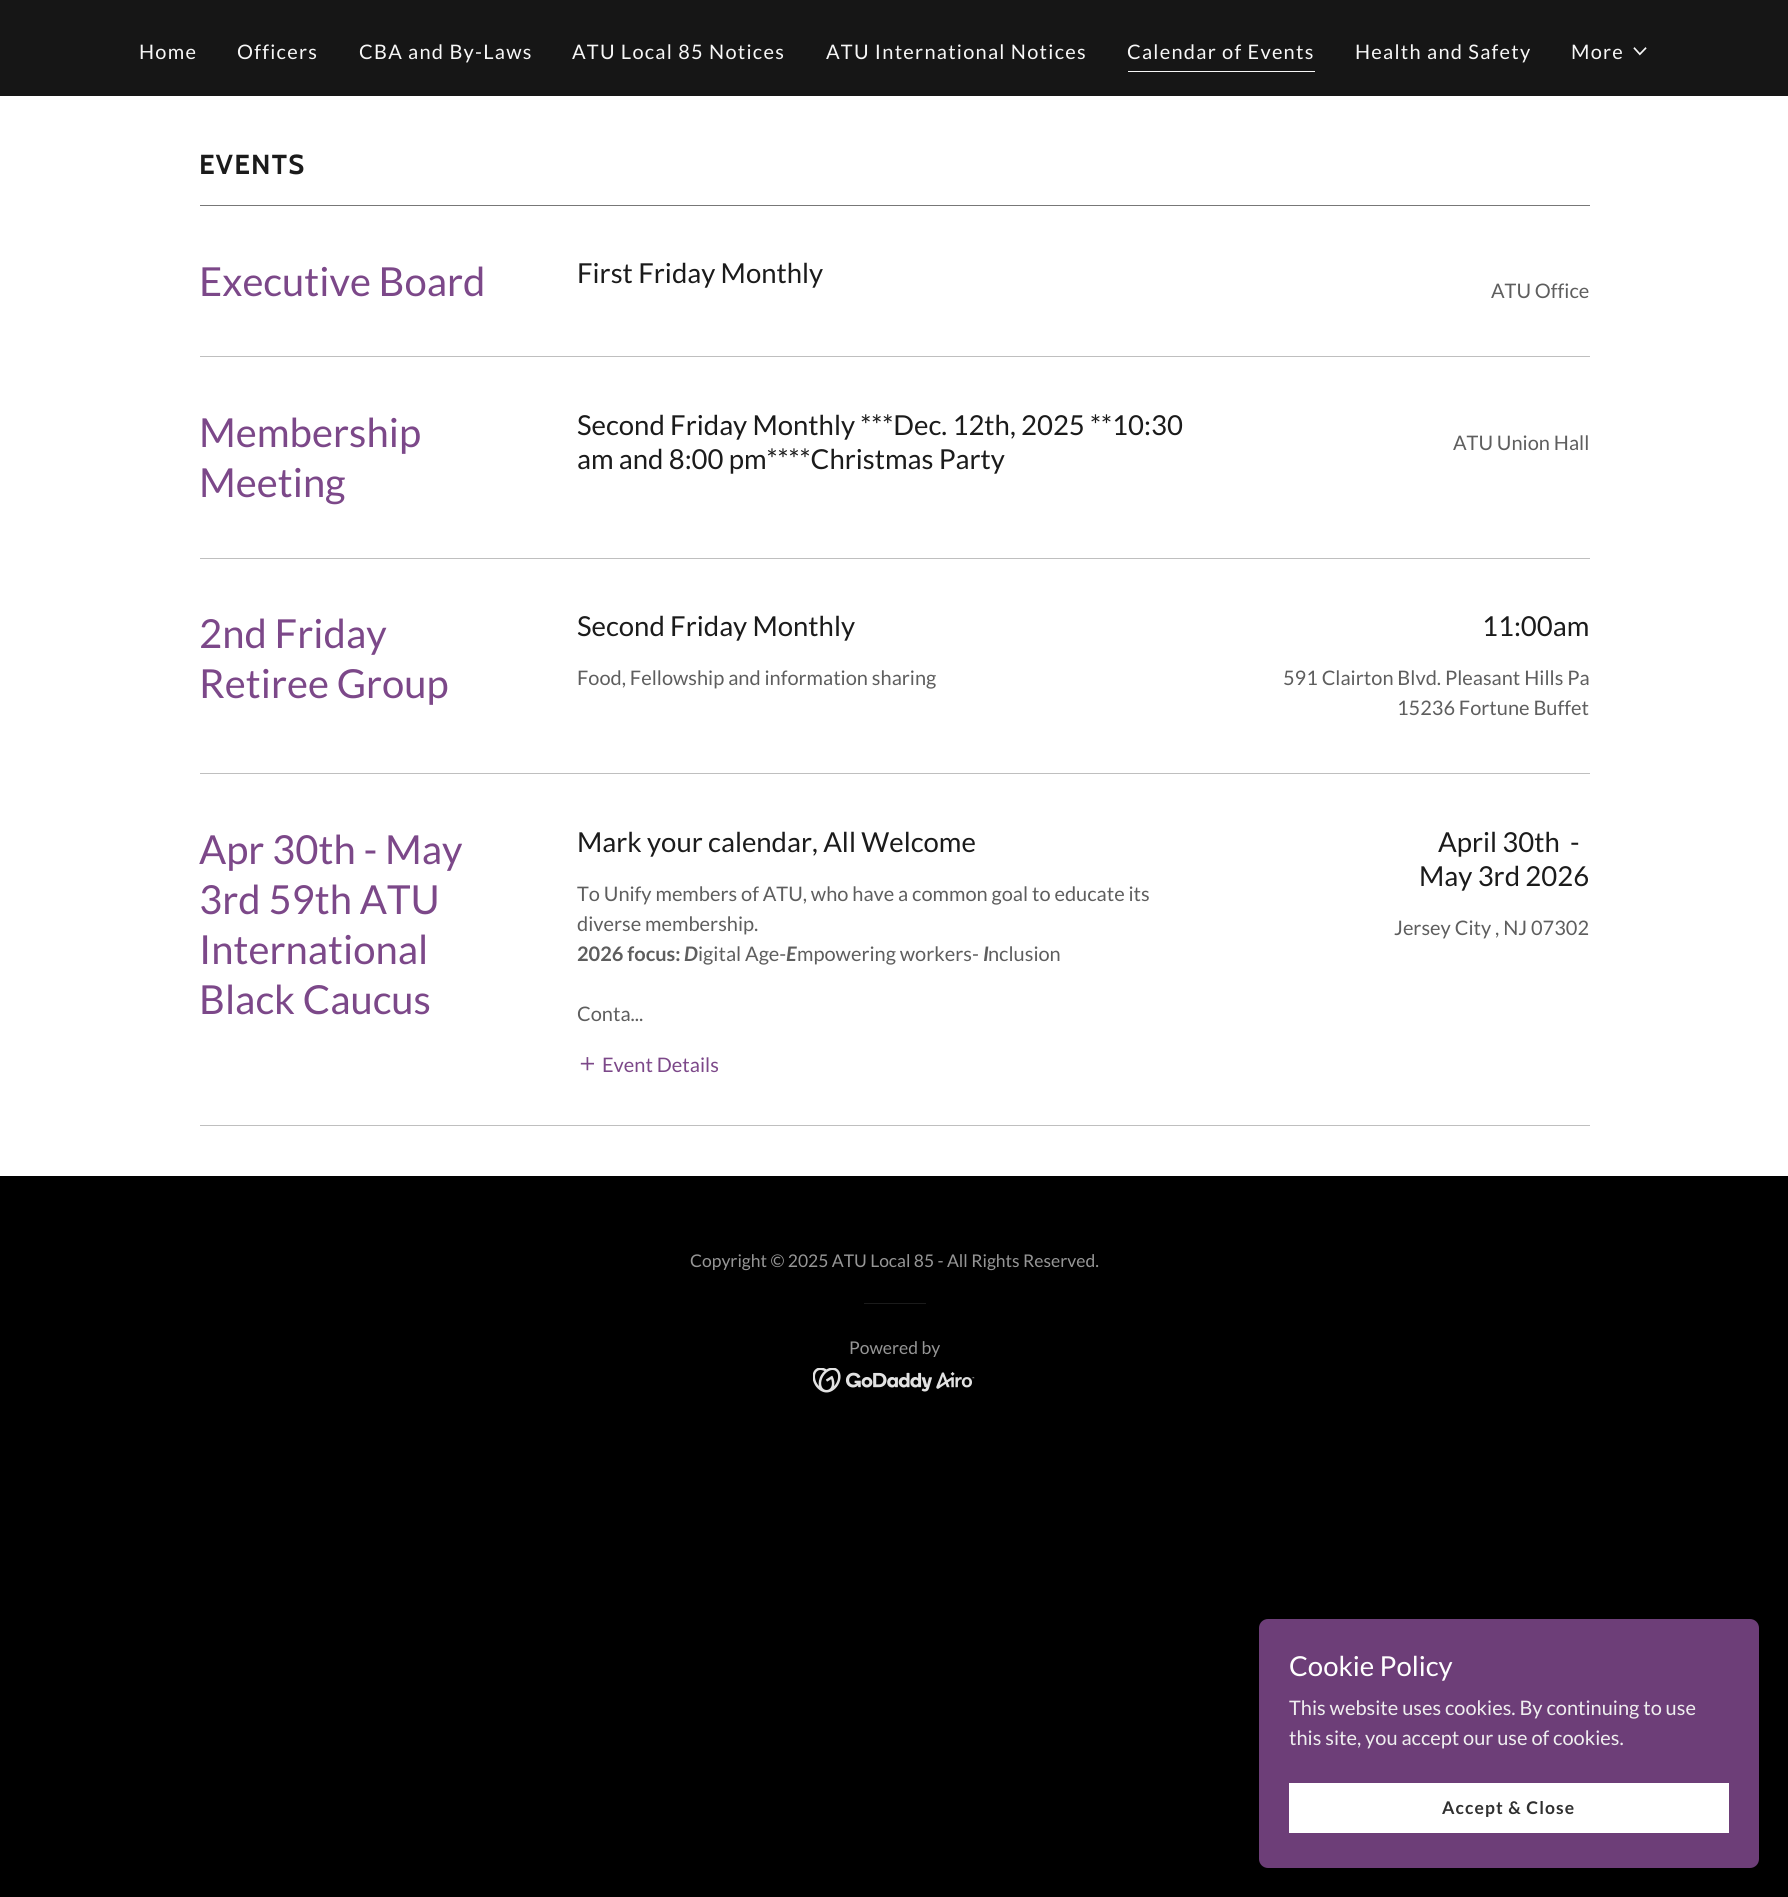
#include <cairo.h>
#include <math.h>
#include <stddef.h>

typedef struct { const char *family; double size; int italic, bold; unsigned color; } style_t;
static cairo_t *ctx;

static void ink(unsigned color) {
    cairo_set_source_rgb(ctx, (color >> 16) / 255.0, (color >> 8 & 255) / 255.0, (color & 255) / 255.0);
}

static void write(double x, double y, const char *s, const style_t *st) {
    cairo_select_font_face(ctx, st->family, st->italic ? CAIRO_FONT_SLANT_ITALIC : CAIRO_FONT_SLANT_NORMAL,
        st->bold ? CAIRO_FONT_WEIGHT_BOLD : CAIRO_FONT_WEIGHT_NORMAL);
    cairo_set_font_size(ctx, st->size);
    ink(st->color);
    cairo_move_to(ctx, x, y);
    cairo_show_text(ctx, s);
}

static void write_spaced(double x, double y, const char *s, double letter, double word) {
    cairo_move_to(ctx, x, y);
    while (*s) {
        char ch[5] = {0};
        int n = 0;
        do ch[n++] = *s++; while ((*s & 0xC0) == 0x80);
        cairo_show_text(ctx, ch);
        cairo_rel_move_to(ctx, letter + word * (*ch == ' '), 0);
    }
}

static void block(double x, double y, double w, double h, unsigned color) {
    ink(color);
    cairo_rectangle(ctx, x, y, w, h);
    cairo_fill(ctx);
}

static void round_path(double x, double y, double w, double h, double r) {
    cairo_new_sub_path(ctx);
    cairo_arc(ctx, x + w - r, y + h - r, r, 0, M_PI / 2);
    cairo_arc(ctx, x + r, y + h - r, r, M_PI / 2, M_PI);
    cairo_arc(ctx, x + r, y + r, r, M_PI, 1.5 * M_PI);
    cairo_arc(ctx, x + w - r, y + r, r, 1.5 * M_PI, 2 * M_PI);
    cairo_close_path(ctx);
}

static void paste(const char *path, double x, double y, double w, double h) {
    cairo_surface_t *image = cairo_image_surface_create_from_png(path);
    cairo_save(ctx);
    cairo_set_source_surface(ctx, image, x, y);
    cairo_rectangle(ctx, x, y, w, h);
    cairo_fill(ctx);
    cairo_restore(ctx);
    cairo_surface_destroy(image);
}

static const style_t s1 = {"Lato", 40, 0, 0, 0x7c4889};
static const style_t s2 = {"Lato", 27.5, 0, 0, 0x1b1b1b};
static const style_t s3 = {"Lato", 20, 0, 0, 0x5e5e5e};
static const style_t s4 = {"Lato", 20, 0, 1, 0x5e5e5e};
static const style_t s5 = {"Lato", 20, 1, 1, 0x5e5e5e};
static const style_t s6 = {"Lato", 20, 0, 0, 0x7c4889};
static const style_t s7 = {"Lato", 17.5, 0, 0, 0x969696};
static const style_t s8 = {"Lato", 27.5, 0, 0, 0xffffff};
static const style_t s9 = {"Lato", 20, 0, 0, 0xefeeef};

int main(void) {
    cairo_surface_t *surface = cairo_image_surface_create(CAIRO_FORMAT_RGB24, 1788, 1897);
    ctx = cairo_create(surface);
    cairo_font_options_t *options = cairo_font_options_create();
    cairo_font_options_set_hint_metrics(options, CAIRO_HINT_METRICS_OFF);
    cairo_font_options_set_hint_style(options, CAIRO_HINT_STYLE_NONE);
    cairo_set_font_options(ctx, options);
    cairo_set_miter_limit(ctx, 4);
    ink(0x000000);
    cairo_paint(ctx);
    block(0, 0, 1788, 96, 0x161616);
    cairo_select_font_face(ctx, "Lato", CAIRO_FONT_SLANT_NORMAL, CAIRO_FONT_WEIGHT_NORMAL);
    cairo_set_font_size(ctx, 20);
    ink(0xf7f7f7);
    write_spaced(139, 59, "Home", 1.25, 0);
    write_spaced(237, 59, "Officers", 1.25, 0);
    write_spaced(359, 59, "CBA and By-Laws", 1.25, 0);
    write_spaced(572, 59, "ATU Local 85 Notices", 1.25, 0);
    write_spaced(826, 59, "ATU International Notices", 1.25, 0);
    block(1128, 71, 187, 1, 0xf7f7f7);
    write_spaced(1127, 59, "Calendar of Events", 1.25, 0);
    write_spaced(1355, 59, "Health and Safety", 1.25, 0);
    write_spaced(1571, 59, "More", 1.25, 0);
    paste("pic1.png", 1633, 47, 14, 9);
    block(0, 96, 1788, 1080, 0xffffff);
    cairo_select_font_face(ctx, "Cabin", CAIRO_FONT_SLANT_NORMAL, CAIRO_FONT_WEIGHT_BOLD);
    cairo_set_font_size(ctx, 27.5);
    ink(0x1b1b1b);
    write_spaced(199, 174, "EVENTS", 1.25, 0);
    block(200, 205, 1390, 1, 0x777777);
    block(200, 356, 1390, 1, 0xbfbfbf);
    write(199, 296, "Executive Board", &s1);
    write(577, 283, "First Friday Monthly", &s2);
    write(1491, 298, "ATU Office", &s3);
    block(200, 558, 1390, 1, 0xbfbfbf);
    write(199, 447, "Membership", &s1);
    write(199, 497, "Meeting", &s1);
    write(577, 435, "Second Friday Monthly ***Dec. 12th, 2025 **10:30", &s2);
    write(577, 469, "am and 8:00 pm****Christmas Party", &s2);
    write(1453, 450, "ATU Union Hall", &s3);
    block(200, 773, 1390, 1, 0xbfbfbf);
    write(199, 648, "2nd Friday", &s1);
    write(199, 698, "Retiree Group", &s1);
    write(577, 636, "Second Friday Monthly", &s2);
    write(577, 685, "Food, Fellowship and information sharing", &s3);
    write(1482, 636, "11:00am", &s2);
    write(1283, 685, "591 Clairton Blvd. Pleasant Hills Pa", &s3);
    write(1397, 715, "15236 Fortune Buffet", &s3);
    block(200, 1125, 1390, 1, 0xbfbfbf);
    write(199, 864, "Apr 30th - May", &s1);
    write(199, 914, "3rd 59th ATU", &s1);
    write(199, 964, "International", &s1);
    write(199, 1014, "Black Caucus", &s1);
    write(577, 852, "Mark your calendar, All Welcome", &s2);
    write(577, 901, "To Unify members of ATU, who have a common goal to educate its", &s3);
    write(577, 931, "diverse membership.", &s3);
    write(577, 961, "2026 focus:", &s4);
    write(684, 961, "D", &s5);
    write(698, 961, "igital Age-", &s3);
    write(786, 961, "E", &s5);
    write(797, 961, "mpowering workers-", &s3);
    write(983, 961, "I", &s5);
    write(988, 961, "nclusion", &s3);
    write(577, 1021, "Conta...", &s3);
    paste("pic2.png", 580, 1057, 14, 14);
    write(602, 1072, "Event Details", &s6);
    write(1438, 852, "April 30th", &s2);
    write(1570, 852, "-", &s2);
    write(1419, 886, "May 3rd 2026", &s2);
    write(1394, 935, "Jersey City , NJ 07302", &s3);
    write(690, 1267, "Copyright © 2025 ATU Local 85 - All Rights Reserved.", &s7);
    block(864, 1303, 62, 1, 0x1b1b1b);
    write(849, 1354, "Powered by", &s7);
    paste("pic3.png", 813, 1368, 162, 25);
    ink(0x6d3e78);
    round_path(1259, 1619, 500, 249, 9);
    cairo_fill(ctx);
    write(1289, 1676, "Cookie Policy", &s8);
    write(1289, 1715, "This website uses cookies. By continuing to use", &s9);
    write(1289, 1745, "this site, you accept our use of cookies.", &s9);
    block(1289, 1783, 440, 50, 0xffffff);
    cairo_select_font_face(ctx, "Lato", CAIRO_FONT_SLANT_NORMAL, CAIRO_FONT_WEIGHT_BOLD);
    cairo_set_font_size(ctx, 17.5);
    ink(0x303030);
    write_spaced(1442, 1814, "Accept & Close", 1.1, 0);
    cairo_surface_write_to_png(surface, "screenshot.png");
    cairo_font_options_destroy(options);
    cairo_destroy(ctx);
    cairo_surface_destroy(surface);
    return 0;
}
